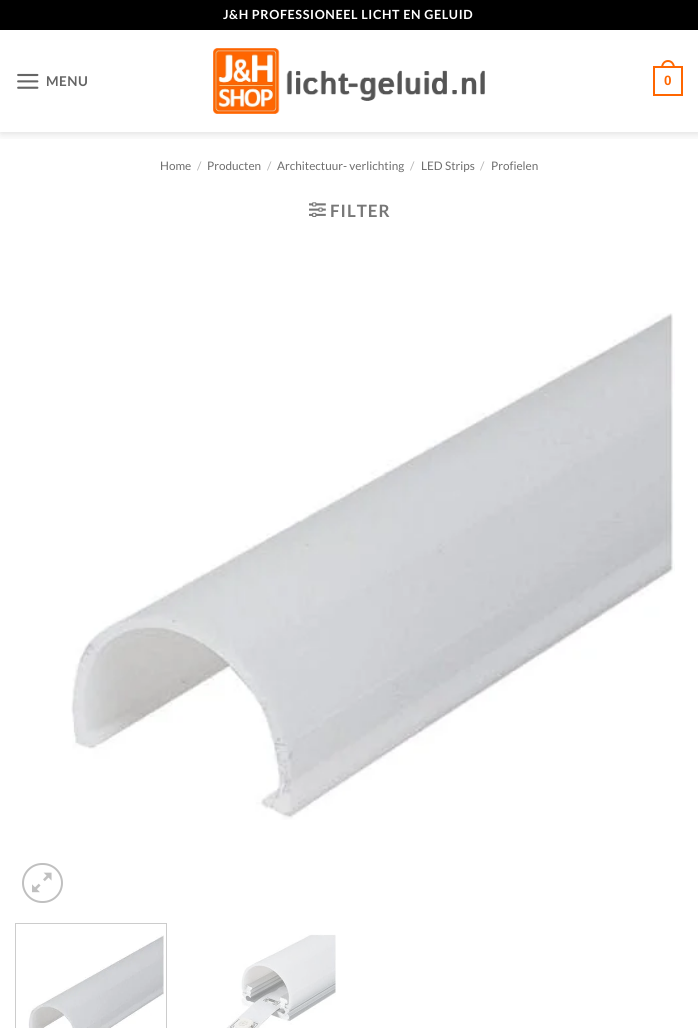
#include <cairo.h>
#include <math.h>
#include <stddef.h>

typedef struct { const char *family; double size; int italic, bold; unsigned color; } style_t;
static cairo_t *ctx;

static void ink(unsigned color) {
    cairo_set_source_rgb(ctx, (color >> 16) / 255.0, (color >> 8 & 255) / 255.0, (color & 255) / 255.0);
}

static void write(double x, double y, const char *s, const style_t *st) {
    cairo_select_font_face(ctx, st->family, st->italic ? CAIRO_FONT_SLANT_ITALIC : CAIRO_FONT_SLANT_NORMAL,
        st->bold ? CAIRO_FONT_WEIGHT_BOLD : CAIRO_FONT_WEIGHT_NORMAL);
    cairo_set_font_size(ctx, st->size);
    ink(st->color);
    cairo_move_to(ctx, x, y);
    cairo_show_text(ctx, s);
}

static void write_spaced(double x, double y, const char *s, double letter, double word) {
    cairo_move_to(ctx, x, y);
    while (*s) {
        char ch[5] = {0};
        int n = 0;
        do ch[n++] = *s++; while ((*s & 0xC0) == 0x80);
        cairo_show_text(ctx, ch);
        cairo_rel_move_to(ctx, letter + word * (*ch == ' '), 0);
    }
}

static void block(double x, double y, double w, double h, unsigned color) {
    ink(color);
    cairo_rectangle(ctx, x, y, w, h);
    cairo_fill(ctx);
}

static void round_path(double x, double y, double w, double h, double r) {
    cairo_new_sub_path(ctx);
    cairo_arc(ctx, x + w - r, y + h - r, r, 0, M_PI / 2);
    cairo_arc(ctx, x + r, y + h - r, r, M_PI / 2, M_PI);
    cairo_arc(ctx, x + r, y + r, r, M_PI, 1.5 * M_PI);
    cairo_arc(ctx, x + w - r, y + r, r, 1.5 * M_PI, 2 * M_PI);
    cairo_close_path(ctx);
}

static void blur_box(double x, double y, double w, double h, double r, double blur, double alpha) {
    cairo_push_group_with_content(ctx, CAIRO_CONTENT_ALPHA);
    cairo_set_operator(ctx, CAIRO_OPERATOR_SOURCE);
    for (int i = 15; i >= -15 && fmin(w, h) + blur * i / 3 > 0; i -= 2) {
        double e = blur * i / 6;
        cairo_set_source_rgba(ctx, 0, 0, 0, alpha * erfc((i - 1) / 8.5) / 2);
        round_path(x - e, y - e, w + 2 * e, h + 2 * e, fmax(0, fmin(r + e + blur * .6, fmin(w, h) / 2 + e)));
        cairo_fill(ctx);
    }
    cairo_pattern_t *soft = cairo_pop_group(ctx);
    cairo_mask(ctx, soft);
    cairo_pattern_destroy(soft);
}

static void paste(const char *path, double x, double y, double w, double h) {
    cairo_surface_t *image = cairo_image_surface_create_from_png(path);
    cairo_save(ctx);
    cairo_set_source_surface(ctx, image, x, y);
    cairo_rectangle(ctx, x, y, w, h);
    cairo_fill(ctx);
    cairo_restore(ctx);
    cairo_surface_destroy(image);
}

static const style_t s1 = {"Liberation Sans", 13.5, 0, 1, 0xff6600};
static const style_t s2 = {"Lato", 11.75, 0, 0, 0x6e6e6e};
static const style_t s3 = {"Lato", 11.75, 0, 0, 0xb2b2b2};

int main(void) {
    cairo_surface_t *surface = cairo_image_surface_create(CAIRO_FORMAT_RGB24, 698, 1028);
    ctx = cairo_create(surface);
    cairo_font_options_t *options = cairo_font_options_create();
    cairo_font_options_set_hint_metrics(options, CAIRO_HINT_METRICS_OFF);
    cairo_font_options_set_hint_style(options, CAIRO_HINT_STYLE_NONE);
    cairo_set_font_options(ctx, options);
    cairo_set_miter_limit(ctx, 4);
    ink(0xffffff);
    cairo_paint(ctx);
    cairo_save(ctx);
    cairo_rectangle(ctx, 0, 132, 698, 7);
    cairo_clip(ctx);
    ink(0x000000);
    blur_box(1, 1, 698, 132, 0, 5, 0.15);
    cairo_restore(ctx);
    block(0, 0, 698, 30, 0x000000);
    cairo_select_font_face(ctx, "Lato", CAIRO_FONT_SLANT_NORMAL, CAIRO_FONT_WEIGHT_BOLD);
    cairo_set_font_size(ctx, 12.6);
    ink(0xffffff);
    write_spaced(223, 19, "J&H PROFESSIONEEL LICHT EN GELUID", 0.6, 0);
    paste("pic1.png", 17, 73, 22, 16);
    cairo_set_font_size(ctx, 13.5);
    ink(0x656565);
    write_spaced(46, 86, "MENU", 0.5, 0);
    paste("pic2.png", 213, 48, 272, 66);
    cairo_rectangle(ctx, 654, 67, 28, 28);
    ink(0xff6600);
    cairo_stroke(ctx);
    cairo_set_fill_rule(ctx, CAIRO_FILL_RULE_EVEN_ODD);
    cairo_new_path(ctx);
    cairo_move_to(ctx, 668, 60);
    cairo_curve_to(ctx, 672.5, 60, 675, 64, 675, 68);
    cairo_line_to(ctx, 661, 68);
    cairo_curve_to(ctx, 661, 64, 663.5, 60, 668, 60);
    cairo_close_path(ctx);
    cairo_move_to(ctx, 668, 62);
    cairo_curve_to(ctx, 671.5, 62, 673, 65, 673, 68);
    cairo_line_to(ctx, 663, 68);
    cairo_curve_to(ctx, 663, 65, 664.5, 62, 668, 62);
    cairo_close_path(ctx);
    cairo_fill(ctx);
    write(664, 85, "0", &s1);
    write(160, 170, "Home", &s2);
    write(197, 170, "/", &s3);
    write(207, 170, "Producten", &s2);
    write(267, 170, "/", &s3);
    write(277, 170, "Architectuur- verlichting", &s2);
    write(410, 170, "/", &s3);
    write(421, 170, "LED Strips", &s2);
    write(480, 170, "/", &s3);
    write(491, 170, "Profielen", &s2);
    paste("pic3.png", 309, 202, 17, 15);
    cairo_select_font_face(ctx, "Lato", CAIRO_FONT_SLANT_NORMAL, CAIRO_FONT_WEIGHT_BOLD);
    cairo_set_font_size(ctx, 17);
    ink(0x777777);
    write_spaced(330, 217, "FILTER", 1, 0);
    paste("pic4.png", 71, 313, 604, 507);
    round_path(23, 864, 39, 38, 19);
    ink(0xc0c0c0);
    cairo_stroke(ctx);
    paste("pic5.png", 32, 872, 20, 21);
    cairo_rectangle(ctx, 15.5, 923.5, 151, 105);
    ink(0xcccccc);
    cairo_set_line_width(ctx, 1);
    cairo_stroke(ctx);
    paste("pic6.png", 28, 935, 136, 93);
    paste("pic7.png", 226, 934, 110, 94);
    cairo_surface_write_to_png(surface, "screenshot.png");
    cairo_font_options_destroy(options);
    cairo_destroy(ctx);
    cairo_surface_destroy(surface);
    return 0;
}
